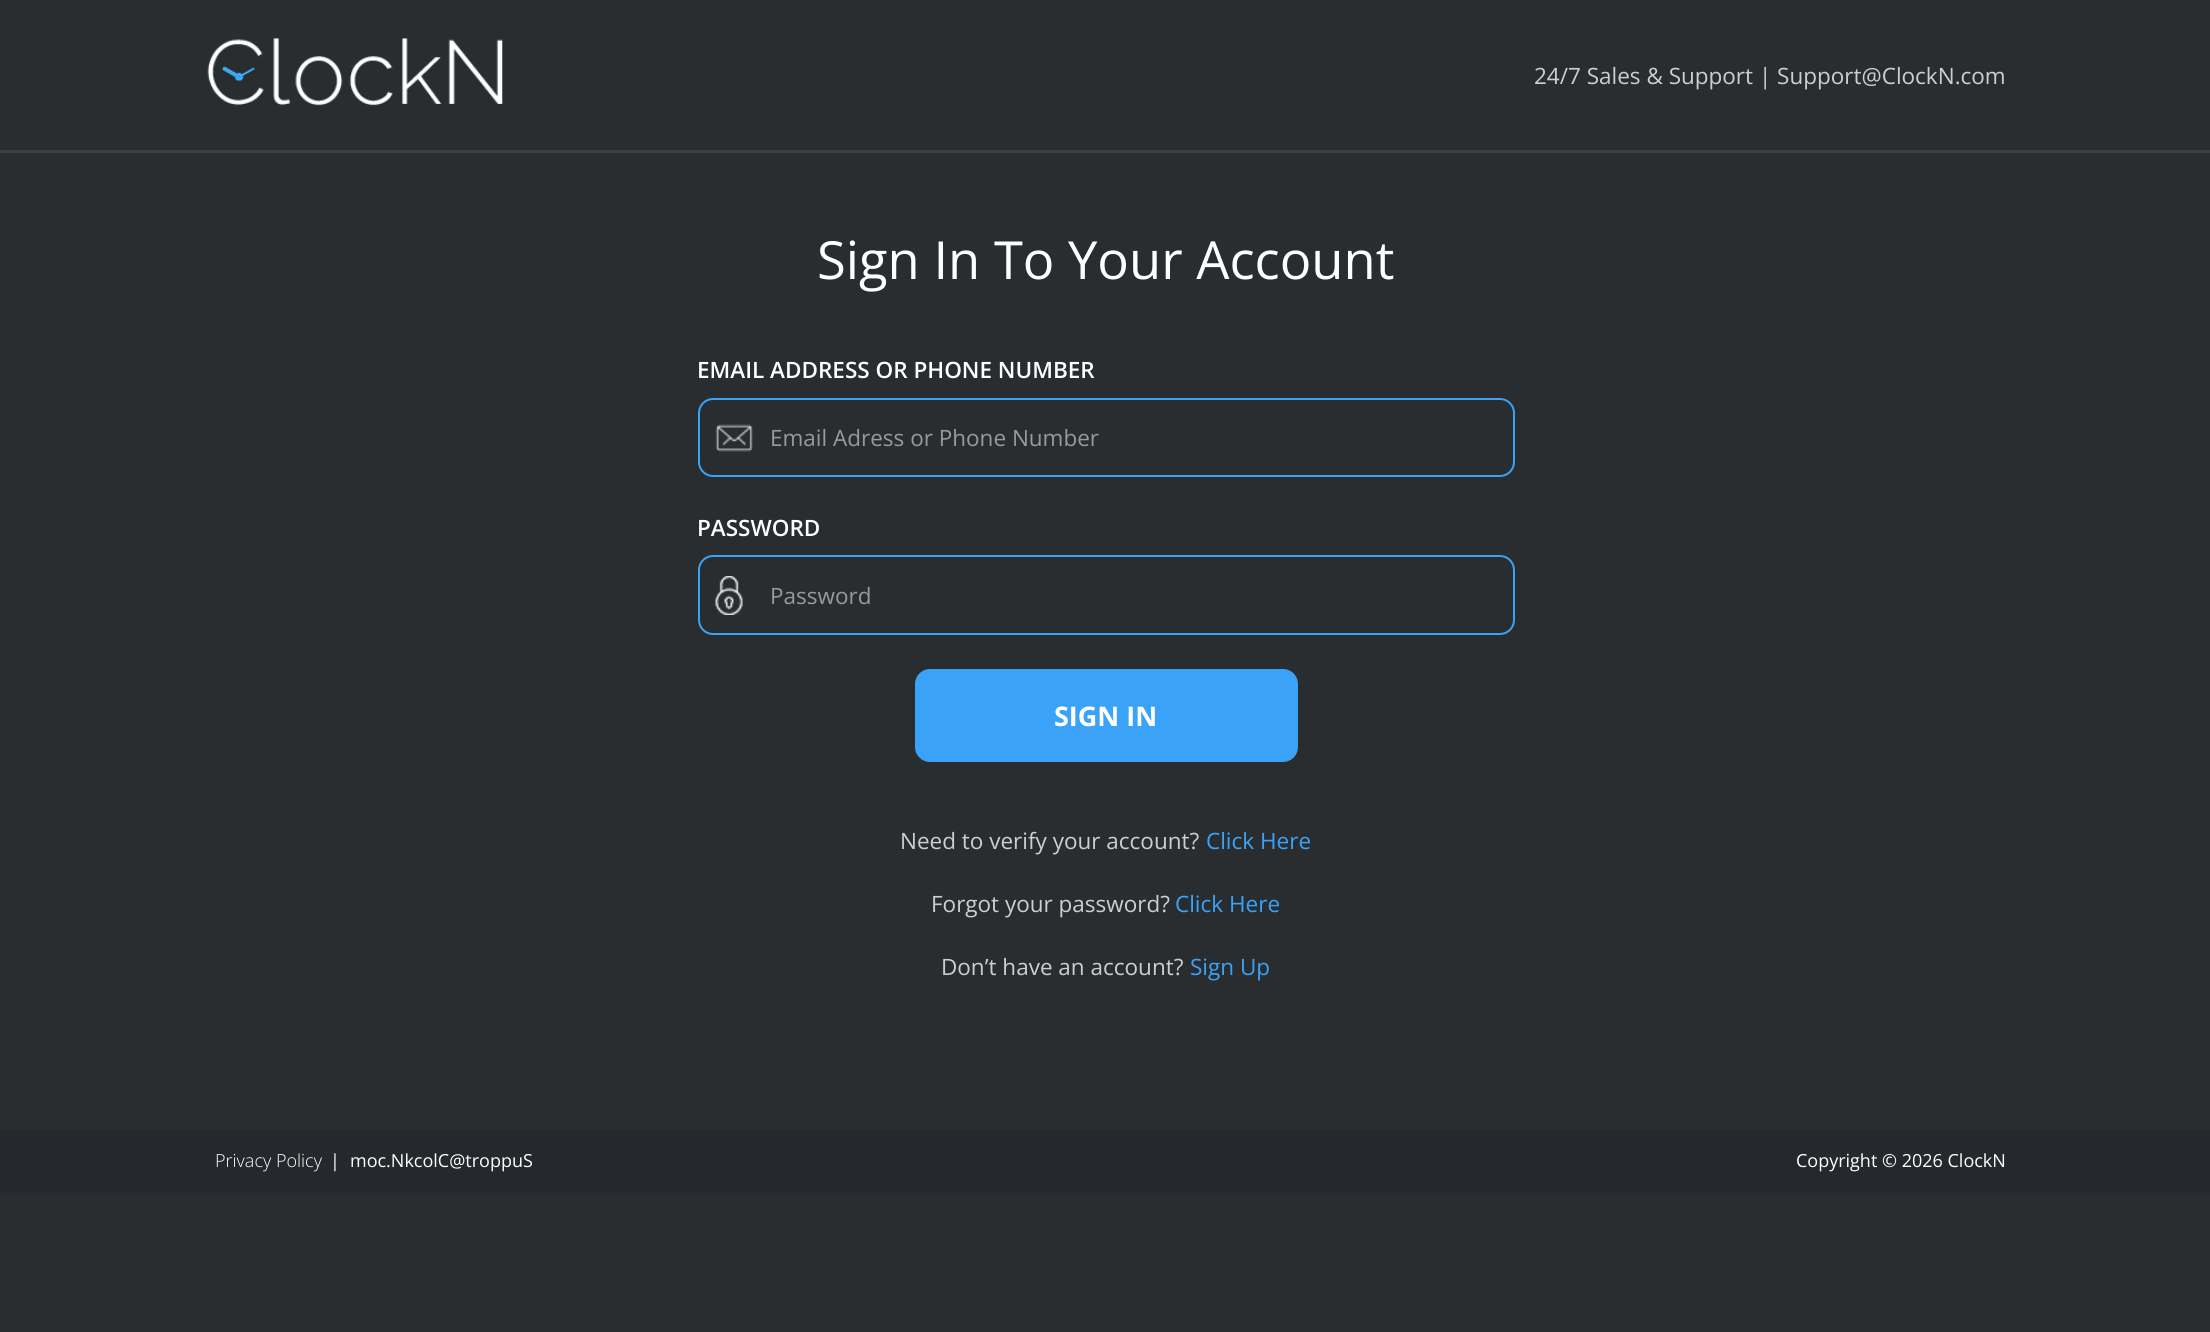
#include <cairo.h>
#include <math.h>
#include <stddef.h>

typedef struct { const char *family; double size; int italic, bold; unsigned color; } style_t;
static cairo_t *ctx;

static void ink(unsigned color) {
    cairo_set_source_rgb(ctx, (color >> 16) / 255.0, (color >> 8 & 255) / 255.0, (color & 255) / 255.0);
}

static void write(double x, double y, const char *s, const style_t *st) {
    cairo_select_font_face(ctx, st->family, st->italic ? CAIRO_FONT_SLANT_ITALIC : CAIRO_FONT_SLANT_NORMAL,
        st->bold ? CAIRO_FONT_WEIGHT_BOLD : CAIRO_FONT_WEIGHT_NORMAL);
    cairo_set_font_size(ctx, st->size);
    ink(st->color);
    cairo_move_to(ctx, x, y);
    cairo_show_text(ctx, s);
}

static void block(double x, double y, double w, double h, unsigned color) {
    ink(color);
    cairo_rectangle(ctx, x, y, w, h);
    cairo_fill(ctx);
}

static void round_path(double x, double y, double w, double h, double r) {
    cairo_new_sub_path(ctx);
    cairo_arc(ctx, x + w - r, y + h - r, r, 0, M_PI / 2);
    cairo_arc(ctx, x + r, y + h - r, r, M_PI / 2, M_PI);
    cairo_arc(ctx, x + r, y + r, r, M_PI, 1.5 * M_PI);
    cairo_arc(ctx, x + w - r, y + r, r, 1.5 * M_PI, 2 * M_PI);
    cairo_close_path(ctx);
}

static void paste(const char *path, double x, double y, double w, double h) {
    cairo_surface_t *image = cairo_image_surface_create_from_png(path);
    cairo_save(ctx);
    cairo_set_source_surface(ctx, image, x, y);
    cairo_rectangle(ctx, x, y, w, h);
    cairo_fill(ctx);
    cairo_restore(ctx);
    cairo_surface_destroy(image);
}

static const style_t s1 = {"Open Sans", 22.5, 0, 0, 0xcecece};
static const style_t s2 = {"Open Sans", 52.5, 0, 0, 0xffffff};
static const style_t s3 = {"Open Sans SemiBold", 22.5, 0, 0, 0xffffff};
static const style_t s4 = {"Open Sans", 22.5, 0, 0, 0x999999};
static const style_t s5 = {"Open Sans", 27, 0, 1, 0xffffff};
static const style_t s6 = {"Open Sans", 22.5, 0, 0, 0x3aa3f8};
static const style_t s7 = {"Open Sans Light", 18, 0, 0, 0xffffff};
static const style_t s8 = {"Open Sans", 18, 0, 0, 0xffffff};

int main(void) {
    cairo_surface_t *surface = cairo_image_surface_create(CAIRO_FORMAT_RGB24, 2210, 1332);
    ctx = cairo_create(surface);
    cairo_font_options_t *options = cairo_font_options_create();
    cairo_font_options_set_hint_metrics(options, CAIRO_HINT_METRICS_OFF);
    cairo_font_options_set_hint_style(options, CAIRO_HINT_STYLE_NONE);
    cairo_set_font_options(ctx, options);
    cairo_set_miter_limit(ctx, 4);
    ink(0x292d30);
    cairo_paint(ctx);
    paste("pic1.png", 207, 38, 296, 68);
    write(1534, 84, "24/7 Sales & Support | Support@ClockN.com", &s1);
    block(0, 150, 2210, 3, 0x3c4044);
    write(817, 279, "Sign In To Your Account", &s2);
    write(697, 378, "EMAIL ADDRESS OR PHONE NUMBER", &s3);
    paste("pic2.png", 715, 424, 38, 28);
    round_path(699, 399, 815, 77, 14);
    ink(0x3aa3f8);
    cairo_stroke(ctx);
    write(770, 446, "Email Adress or Phone Number", &s4);
    write(697, 536, "PASSWORD", &s3);
    paste("pic3.png", 715, 576, 28, 39);
    round_path(699, 556, 815, 78, 14);
    ink(0x3aa3f8);
    cairo_stroke(ctx);
    write(770, 604, "Password", &s4);
    ink(0x3aa3f8);
    round_path(916, 670, 381, 91, 14);
    cairo_fill_preserve(ctx);
    cairo_stroke(ctx);
    write(1054, 726, "SIGN IN", &s5);
    write(900, 849, "Need to verify your account?", &s1);
    write(1206, 849, "Click Here", &s6);
    write(931, 912, "Forgot your password?", &s1);
    write(1175, 912, "Click Here", &s6);
    write(941, 975, "Don’t have an account?", &s1);
    write(1190, 975, "Sign Up", &s6);
    block(0, 1130, 2210, 63, 0x25282c);
    write(215, 1167, "Privacy Policy", &s7);
    write(330, 1167, "|", &s8);
    write(350, 1167, "moc.NkcolC@troppuS", &s8);
    write(1796, 1167, "Copyright © 2026 ClockN", &s8);
    cairo_surface_write_to_png(surface, "screenshot.png");
    cairo_font_options_destroy(options);
    cairo_destroy(ctx);
    cairo_surface_destroy(surface);
    return 0;
}
